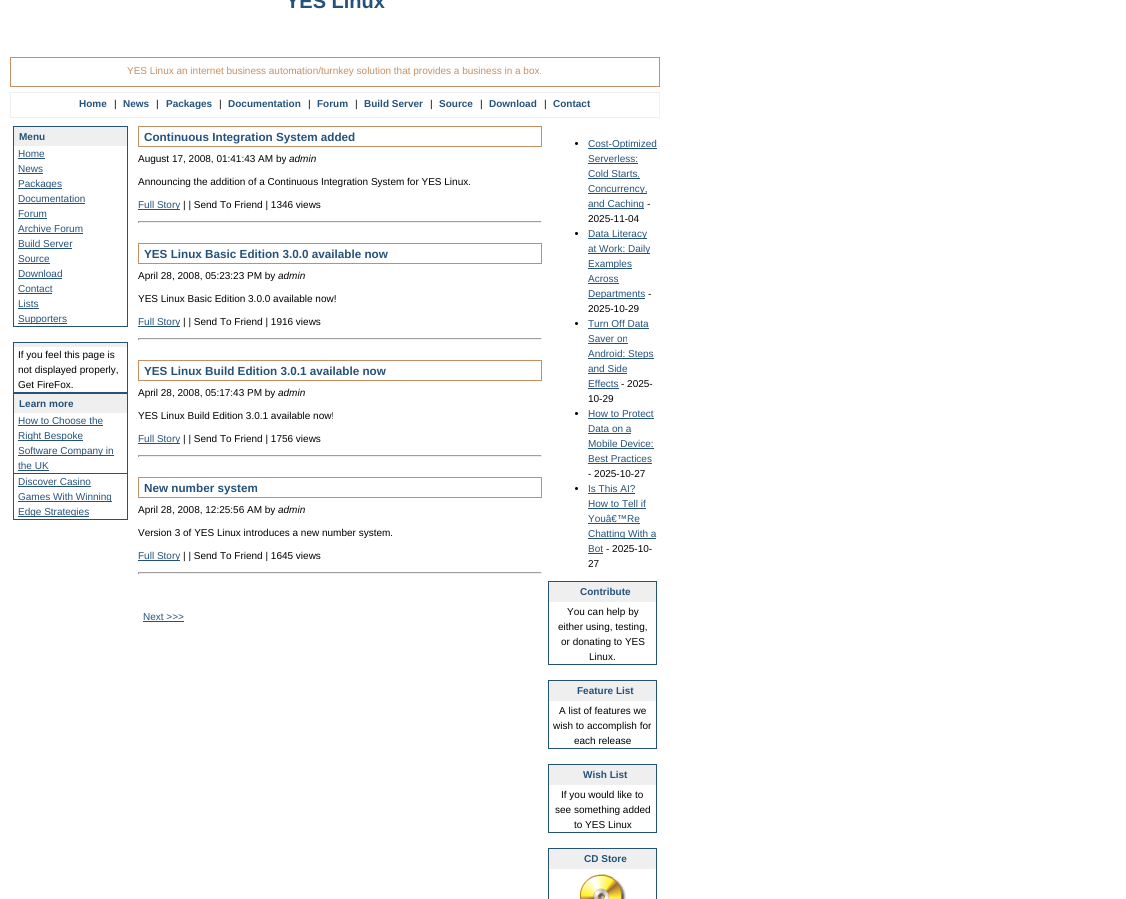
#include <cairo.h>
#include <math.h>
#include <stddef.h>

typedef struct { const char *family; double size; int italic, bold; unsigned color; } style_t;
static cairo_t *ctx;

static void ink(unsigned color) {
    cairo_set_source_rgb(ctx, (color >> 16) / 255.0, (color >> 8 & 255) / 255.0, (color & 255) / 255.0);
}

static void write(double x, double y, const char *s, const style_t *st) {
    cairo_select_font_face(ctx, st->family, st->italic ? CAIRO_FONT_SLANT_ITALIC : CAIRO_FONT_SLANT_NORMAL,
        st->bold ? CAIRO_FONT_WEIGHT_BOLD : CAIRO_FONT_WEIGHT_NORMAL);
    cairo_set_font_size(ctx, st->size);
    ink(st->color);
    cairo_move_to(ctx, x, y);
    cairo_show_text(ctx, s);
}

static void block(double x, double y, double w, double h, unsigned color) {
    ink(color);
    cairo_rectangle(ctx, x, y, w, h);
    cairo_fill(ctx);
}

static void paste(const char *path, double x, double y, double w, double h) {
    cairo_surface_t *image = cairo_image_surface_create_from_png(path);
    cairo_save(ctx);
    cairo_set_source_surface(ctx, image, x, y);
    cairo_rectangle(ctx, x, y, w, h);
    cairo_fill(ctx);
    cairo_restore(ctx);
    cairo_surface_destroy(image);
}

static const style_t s1 = {"Liberation Sans", 20, 0, 1, 0x25527b};
static const style_t s2 = {"Liberation Sans", 10, 0, 0, 0xc68f63};
static const style_t s3 = {"Liberation Sans", 10, 0, 1, 0x25527b};
static const style_t s4 = {"Liberation Sans", 10, 0, 0, 0x000000};
static const style_t s5 = {"Liberation Sans", 10, 0, 0, 0x25527b};
static const style_t s6 = {"Liberation Sans", 11.7, 0, 1, 0x25527b};
static const style_t s7 = {"Liberation Sans", 10, 1, 0, 0x000000};

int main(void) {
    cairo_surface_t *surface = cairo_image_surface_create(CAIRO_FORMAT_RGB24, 1126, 899);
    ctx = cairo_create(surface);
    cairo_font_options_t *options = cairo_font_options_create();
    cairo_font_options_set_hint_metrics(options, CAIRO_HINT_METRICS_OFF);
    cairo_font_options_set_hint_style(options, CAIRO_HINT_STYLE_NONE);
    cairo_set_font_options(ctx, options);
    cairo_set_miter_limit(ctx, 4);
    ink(0xffffff);
    cairo_paint(ctx);
    write(286, 8, "YES Linux", &s1);
    cairo_rectangle(ctx, 10.5, 57.5, 649, 29);
    ink(0xc68f63);
    cairo_set_line_width(ctx, 1);
    cairo_stroke(ctx);
    write(127, 74, "YES Linux an internet business automation/turnkey solution that provides a business in a box.", &s2);
    cairo_rectangle(ctx, 10.5, 92.5, 649, 25);
    ink(0xefefef);
    cairo_stroke(ctx);
    write(79, 107, "Home", &s3);
    write(114, 107, "|", &s4);
    write(123, 107, "News", &s3);
    write(156, 107, "|", &s4);
    write(166, 107, "Packages", &s3);
    write(219, 107, "|", &s4);
    write(228, 107, "Documentation", &s3);
    write(308, 107, "|", &s4);
    write(317, 107, "Forum", &s3);
    write(355, 107, "|", &s4);
    write(364, 107, "Build Server", &s3);
    write(430, 107, "|", &s4);
    write(439, 107, "Source", &s3);
    write(480, 107, "|", &s4);
    write(489, 107, "Download", &s3);
    write(544, 107, "|", &s4);
    write(553, 107, "Contact", &s3);
    block(14, 127, 113, 19, 0xefefef);
    block(13, 126, 115, 1, 0x25527b);
    block(127, 126, 1, 201, 0x25527b);
    block(13, 126, 1, 20, 0x25527b);
    write(19, 140, "Menu", &s3);
    block(13, 326, 115, 1, 0x25527b);
    block(13, 146, 1, 181, 0x25527b);
    write(18, 157, "Home", &s5);
    block(18, 158, 27, 1, 0x25527b);
    write(18, 172, "News", &s5);
    block(18, 173, 25, 1, 0x25527b);
    block(18, 188, 44, 1, 0x25527b);
    write(18, 187, "Packages", &s5);
    write(18, 202, "Documentation", &s5);
    block(18, 203, 67, 1, 0x25527b);
    write(18, 217, "Forum", &s5);
    block(18, 218, 29, 1, 0x25527b);
    write(18, 232, "Archive Forum", &s5);
    block(18, 233, 65, 1, 0x25527b);
    write(18, 247, "Build Server", &s5);
    block(18, 248, 54, 1, 0x25527b);
    write(18, 262, "Source", &s5);
    block(18, 263, 32, 1, 0x25527b);
    write(18, 277, "Download", &s5);
    block(18, 278, 44, 1, 0x25527b);
    write(18, 292, "Contact", &s5);
    block(18, 293, 34, 1, 0x25527b);
    write(18, 307, "Lists", &s5);
    block(18, 308, 21, 1, 0x25527b);
    block(18, 323, 49, 1, 0x25527b);
    write(18, 322, "Supporters", &s5);
    block(13, 343, 115, 4, 0xefefef);
    block(13, 342, 115, 1, 0x25527b);
    block(127, 342, 1, 51, 0x25527b);
    block(13, 342, 1, 5, 0x25527b);
    block(13, 392, 115, 2, 0x25527b);
    block(13, 347, 1, 66, 0x25527b);
    write(18, 358, "If you feel this page is", &s4);
    write(18, 373, "not displayed properly,", &s4);
    write(18, 388, "Get FireFox.", &s4);
    block(14, 394, 113, 19, 0xefefef);
    block(127, 393, 1, 127, 0x25527b);
    write(19, 407, "Learn more", &s3);
    block(13, 473, 115, 1, 0x25527b);
    block(13, 413, 1, 61, 0x25527b);
    write(18, 424, "How to Choose the", &s5);
    block(18, 425, 85, 1, 0x25527b);
    block(18, 440, 65, 1, 0x25527b);
    write(18, 439, "Right Bespoke", &s5);
    block(18, 455, 96, 1, 0x25527b);
    write(18, 454, "Software Company in", &s5);
    write(18, 469, "the UK", &s5);
    block(18, 470, 31, 1, 0x25527b);
    block(13, 519, 115, 1, 0x25527b);
    block(13, 474, 1, 46, 0x25527b);
    write(18, 485, "Discover Casino", &s5);
    block(18, 486, 73, 1, 0x25527b);
    block(18, 501, 94, 1, 0x25527b);
    write(18, 500, "Games With Winning", &s5);
    block(18, 516, 71, 1, 0x25527b);
    write(18, 515, "Edge Strategies", &s5);
    cairo_rectangle(ctx, 138.5, 126.5, 403, 20);
    ink(0xc68f63);
    cairo_stroke(ctx);
    write(144, 141, "Continuous Integration System added", &s6);
    write(138, 162, "August 17, 2008, 01:41:43 AM by", &s4);
    write(289, 162, "admin", &s7);
    write(138, 185, "Announcing the addition of a Continuous Integration System for YES Linux.", &s4);
    block(138, 209, 42, 1, 0x25527b);
    write(138, 208, "Full Story", &s5);
    write(183, 208, "| | Send To Friend | 1346 views", &s4);
    block(138, 221, 404, 1, 0x9f9f9f);
    block(541, 221, 1, 2, 0xeeeeee);
    block(138, 222, 404, 1, 0xeeeeee);
    block(138, 221, 1, 2, 0x9f9f9f);
    cairo_rectangle(ctx, 138.5, 243.5, 403, 20);
    ink(0xc68f63);
    cairo_stroke(ctx);
    write(144, 258, "YES Linux Basic Edition 3.0.0 available now", &s6);
    write(138, 279, "April 28, 2008, 05:23:23 PM by", &s4);
    write(278, 279, "admin", &s7);
    write(138, 302, "YES Linux Basic Edition 3.0.0 available now!", &s4);
    block(138, 326, 42, 1, 0x25527b);
    write(138, 325, "Full Story", &s5);
    write(183, 325, "| | Send To Friend | 1916 views", &s4);
    block(138, 338, 404, 1, 0x9f9f9f);
    block(541, 338, 1, 2, 0xeeeeee);
    block(138, 339, 404, 1, 0xeeeeee);
    block(138, 338, 1, 2, 0x9f9f9f);
    cairo_rectangle(ctx, 138.5, 360.5, 403, 20);
    ink(0xc68f63);
    cairo_stroke(ctx);
    write(144, 375, "YES Linux Build Edition 3.0.1 available now", &s6);
    write(138, 396, "April 28, 2008, 05:17:43 PM by", &s4);
    write(278, 396, "admin", &s7);
    write(138, 419, "YES Linux Build Edition 3.0.1 available now!", &s4);
    block(138, 443, 42, 1, 0x25527b);
    write(138, 442, "Full Story", &s5);
    write(183, 442, "| | Send To Friend | 1756 views", &s4);
    block(138, 455, 404, 1, 0x9f9f9f);
    block(541, 455, 1, 2, 0xeeeeee);
    block(138, 456, 404, 1, 0xeeeeee);
    block(138, 455, 1, 2, 0x9f9f9f);
    cairo_rectangle(ctx, 138.5, 477.5, 403, 20);
    ink(0xc68f63);
    cairo_stroke(ctx);
    write(144, 492, "New number system", &s6);
    write(138, 513, "April 28, 2008, 12:25:56 AM by", &s4);
    write(278, 513, "admin", &s7);
    write(138, 536, "Version 3 of YES Linux introduces a new number system.", &s4);
    block(138, 560, 42, 1, 0x25527b);
    write(138, 559, "Full Story", &s5);
    write(183, 559, "| | Send To Friend | 1645 views", &s4);
    block(138, 572, 404, 1, 0x9f9f9f);
    block(541, 572, 1, 2, 0xeeeeee);
    block(138, 573, 404, 1, 0xeeeeee);
    block(138, 572, 1, 2, 0x9f9f9f);
    write(143, 620, "Next >>>", &s5);
    block(143, 621, 41, 1, 0x25527b);
    ink(0x000000);
    cairo_new_path(ctx);
    cairo_arc(ctx, 576.5, 143.5, 1.5, 0, 2 * M_PI);
    cairo_fill(ctx);
    block(588, 148, 69, 1, 0x25527b);
    write(588, 147, "Cost-Optimized", &s5);
    write(588, 162, "Serverless:", &s5);
    block(588, 163, 50, 1, 0x25527b);
    block(588, 178, 52, 1, 0x25527b);
    write(588, 177, "Cold Starts,", &s5);
    block(588, 193, 59, 1, 0x25527b);
    write(588, 192, "Concurrency,", &s5);
    block(588, 208, 56, 1, 0x25527b);
    write(588, 207, "and Caching", &s5);
    write(647, 207, "-", &s4);
    write(588, 222, "2025-11-04", &s4);
    cairo_new_path(ctx);
    cairo_arc(ctx, 576.5, 233.5, 1.5, 0, 2 * M_PI);
    cairo_fill(ctx);
    block(588, 238, 59, 1, 0x25527b);
    write(588, 237, "Data Literacy", &s5);
    block(588, 253, 62, 1, 0x25527b);
    write(588, 252, "at Work: Daily", &s5);
    block(588, 268, 44, 1, 0x25527b);
    write(588, 267, "Examples", &s5);
    write(588, 282, "Across", &s5);
    block(588, 283, 31, 1, 0x25527b);
    block(588, 298, 57, 1, 0x25527b);
    write(588, 297, "Departments", &s5);
    write(648, 297, "-", &s4);
    write(588, 312, "2025-10-29", &s4);
    cairo_new_path(ctx);
    cairo_arc(ctx, 576.5, 323.5, 1.5, 0, 2 * M_PI);
    cairo_fill(ctx);
    write(588, 327, "Turn Off Data", &s5);
    block(588, 328, 61, 1, 0x25527b);
    write(588, 342, "Saver on", &s5);
    block(588, 343, 40, 1, 0x25527b);
    block(588, 358, 66, 1, 0x25527b);
    write(588, 357, "Android: Steps", &s5);
    write(588, 372, "and Side", &s5);
    block(588, 373, 39, 1, 0x25527b);
    write(588, 387, "Effects", &s5);
    block(588, 388, 31, 1, 0x25527b);
    write(621, 387, "- 2025-", &s4);
    write(588, 402, "10-29", &s4);
    cairo_new_path(ctx);
    cairo_arc(ctx, 576.5, 413.5, 1.5, 0, 2 * M_PI);
    cairo_fill(ctx);
    write(588, 417, "How to Protect", &s5);
    block(588, 418, 66, 1, 0x25527b);
    write(588, 432, "Data on a", &s5);
    block(588, 433, 43, 1, 0x25527b);
    write(588, 447, "Mobile Device:", &s5);
    block(588, 448, 66, 1, 0x25527b);
    write(588, 462, "Best Practices", &s5);
    block(588, 463, 64, 1, 0x25527b);
    write(588, 477, "- 2025-10-27", &s4);
    cairo_new_path(ctx);
    cairo_arc(ctx, 576.5, 488.5, 1.5, 0, 2 * M_PI);
    cairo_fill(ctx);
    write(588, 492, "Is This AI?", &s5);
    block(588, 493, 47, 1, 0x25527b);
    write(588, 507, "How to Tell if", &s5);
    block(588, 508, 58, 1, 0x25527b);
    write(588, 522, "Youâ€™Re", &s5);
    block(588, 523, 52, 1, 0x25527b);
    block(588, 538, 68, 1, 0x25527b);
    write(588, 537, "Chatting With a", &s5);
    write(588, 552, "Bot", &s5);
    block(588, 553, 15, 1, 0x25527b);
    write(606, 552, "- 2025-10-", &s4);
    write(588, 567, "27", &s4);
    block(549, 582, 107, 19, 0xefefef);
    block(548, 581, 109, 1, 0x25527b);
    block(656, 581, 1, 20, 0x25527b);
    block(548, 581, 1, 20, 0x25527b);
    write(580, 595, "Contribute", &s3);
    block(548, 601, 109, 1, 0xefefef);
    block(656, 601, 1, 64, 0x25527b);
    block(548, 664, 109, 1, 0x25527b);
    block(548, 601, 1, 64, 0x25527b);
    write(567, 615, "You can help by", &s4);
    write(558, 630, "either using, testing,", &s4);
    write(561, 645, "or donating to YES", &s4);
    write(589, 660, "Linux.", &s4);
    block(549, 681, 107, 19, 0xefefef);
    block(548, 680, 109, 1, 0x25527b);
    block(656, 680, 1, 20, 0x25527b);
    block(548, 680, 1, 20, 0x25527b);
    write(577, 694, "Feature List", &s3);
    block(548, 700, 109, 1, 0xefefef);
    block(656, 700, 1, 49, 0x25527b);
    block(548, 748, 109, 1, 0x25527b);
    block(548, 700, 1, 49, 0x25527b);
    write(559, 714, "A list of features we", &s4);
    write(553, 729, "wish to accomplish for", &s4);
    write(574, 744, "each release", &s4);
    block(549, 765, 107, 19, 0xefefef);
    block(548, 764, 109, 1, 0x25527b);
    block(656, 764, 1, 20, 0x25527b);
    block(548, 764, 1, 20, 0x25527b);
    write(583, 778, "Wish List", &s3);
    block(548, 784, 109, 1, 0xefefef);
    block(656, 784, 1, 49, 0x25527b);
    block(548, 832, 109, 1, 0x25527b);
    block(548, 784, 1, 49, 0x25527b);
    write(561, 798, "If you would like to", &s4);
    write(555, 813, "see something added", &s4);
    write(574, 828, "to YES Linux", &s4);
    block(549, 849, 107, 19, 0xefefef);
    block(548, 848, 109, 1, 0x25527b);
    block(656, 848, 1, 20, 0x25527b);
    block(548, 848, 1, 20, 0x25527b);
    write(584, 862, "CD Store", &s3);
    block(548, 868, 109, 1, 0xefefef);
    block(656, 868, 1, 31, 0x25527b);
    block(548, 868, 1, 31, 0x25527b);
    paste("pic1.png", 580, 874, 46, 25);
    cairo_surface_write_to_png(surface, "screenshot.png");
    cairo_font_options_destroy(options);
    cairo_destroy(ctx);
    cairo_surface_destroy(surface);
    return 0;
}
